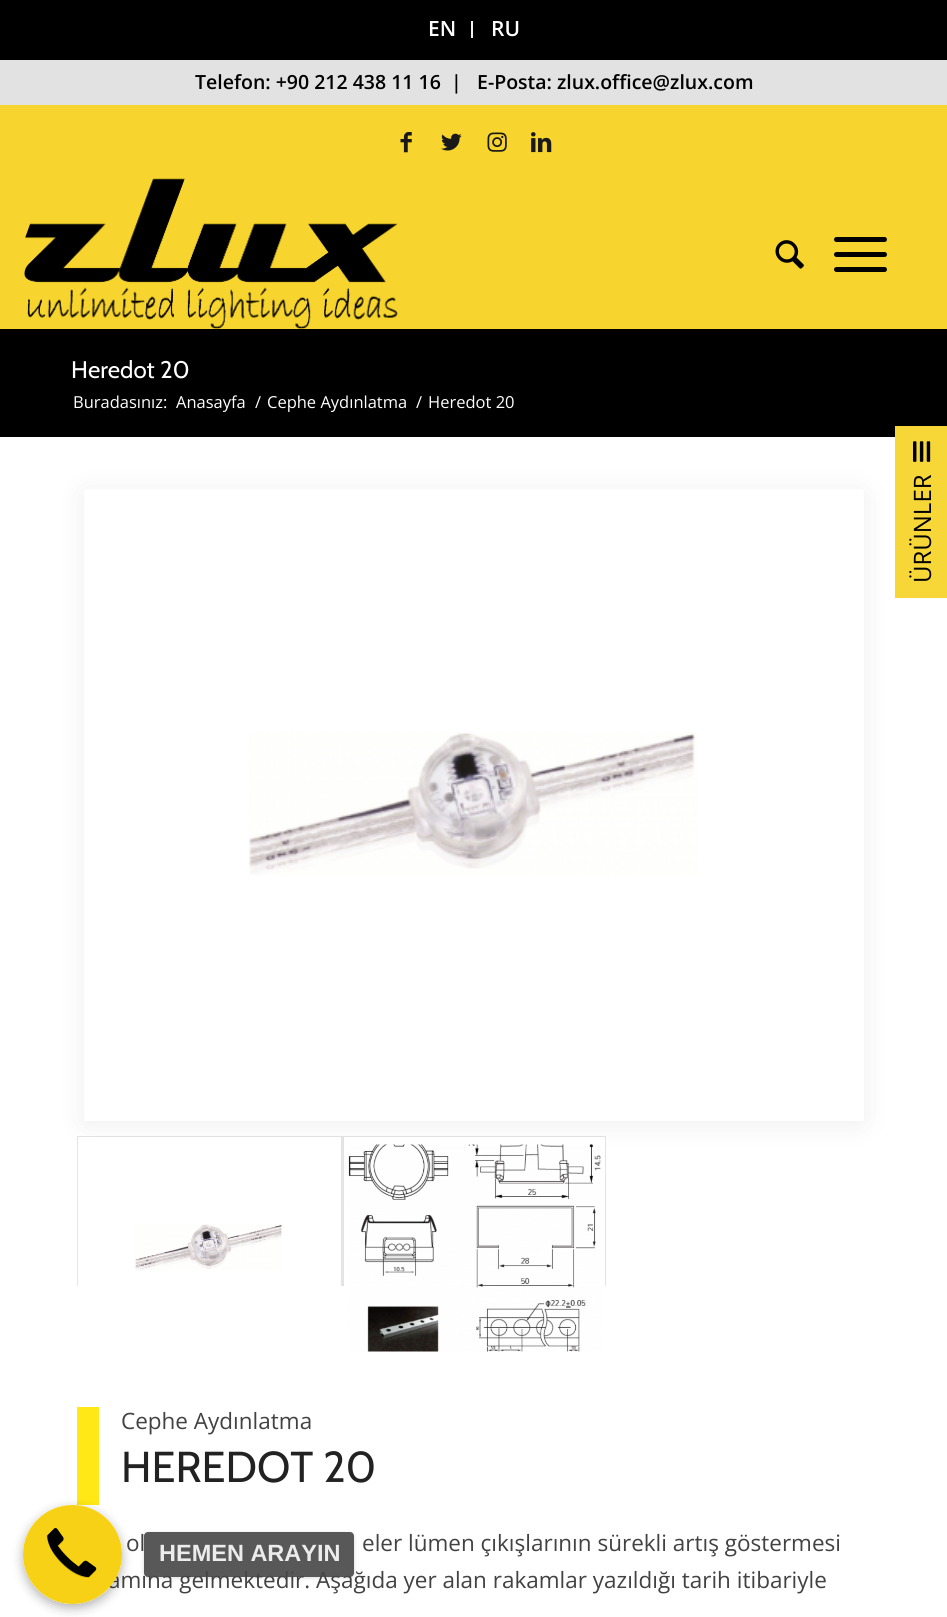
#include <cairo.h>
#include <math.h>
#include <stddef.h>

typedef struct { const char *family; double size; int italic, bold; unsigned color; } style_t;
static cairo_t *ctx;

static void ink(unsigned color) {
    cairo_set_source_rgb(ctx, (color >> 16) / 255.0, (color >> 8 & 255) / 255.0, (color & 255) / 255.0);
}

static void write(double x, double y, const char *s, const style_t *st) {
    cairo_select_font_face(ctx, st->family, st->italic ? CAIRO_FONT_SLANT_ITALIC : CAIRO_FONT_SLANT_NORMAL,
        st->bold ? CAIRO_FONT_WEIGHT_BOLD : CAIRO_FONT_WEIGHT_NORMAL);
    cairo_set_font_size(ctx, st->size);
    ink(st->color);
    cairo_move_to(ctx, x, y);
    cairo_show_text(ctx, s);
}

static void block(double x, double y, double w, double h, unsigned color) {
    ink(color);
    cairo_rectangle(ctx, x, y, w, h);
    cairo_fill(ctx);
}

static void round_path(double x, double y, double w, double h, double r) {
    cairo_new_sub_path(ctx);
    cairo_arc(ctx, x + w - r, y + h - r, r, 0, M_PI / 2);
    cairo_arc(ctx, x + r, y + h - r, r, M_PI / 2, M_PI);
    cairo_arc(ctx, x + r, y + r, r, M_PI, 1.5 * M_PI);
    cairo_arc(ctx, x + w - r, y + r, r, 1.5 * M_PI, 2 * M_PI);
    cairo_close_path(ctx);
}

static void blur_box(double x, double y, double w, double h, double r, double blur, double alpha) {
    cairo_push_group_with_content(ctx, CAIRO_CONTENT_ALPHA);
    cairo_set_operator(ctx, CAIRO_OPERATOR_SOURCE);
    for (int i = 15; i >= -15 && fmin(w, h) + blur * i / 3 > 0; i -= 2) {
        double e = blur * i / 6;
        cairo_set_source_rgba(ctx, 0, 0, 0, alpha * erfc((i - 1) / 8.5) / 2);
        round_path(x - e, y - e, w + 2 * e, h + 2 * e, fmax(0, fmin(r + e + blur * .6, fmin(w, h) / 2 + e)));
        cairo_fill(ctx);
    }
    cairo_pattern_t *soft = cairo_pop_group(ctx);
    cairo_mask(ctx, soft);
    cairo_pattern_destroy(soft);
}

static void paste(const char *path, double x, double y, double w, double h) {
    cairo_surface_t *image = cairo_image_surface_create_from_png(path);
    cairo_save(ctx);
    cairo_set_source_surface(ctx, image, x, y);
    cairo_rectangle(ctx, x, y, w, h);
    cairo_fill(ctx);
    cairo_restore(ctx);
    cairo_surface_destroy(image);
}

static const style_t s1 = {"Open Sans SemiBold", 21, 0, 0, 0xffffff};
static const style_t s2 = {"Open Sans SemiBold", 19.5, 0, 0, 0x000000};
static const style_t s3 = {"Cabin", 24, 0, 0, 0xffffff};
static const style_t s4 = {"Open Sans", 16.5, 0, 0, 0xffffff};
static const style_t s5 = {"Open Sans", 22.5, 0, 0, 0x424242};
static const style_t s6 = {"Cabin", 43.25, 0, 0, 0x222222};
static const style_t s7 = {"Open Sans", 24, 0, 0, 0x000000};
static const style_t s8 = {"Liberation Sans", 23.5, 0, 1, 0xececec};

int main(void) {
    cairo_surface_t *surface = cairo_image_surface_create(CAIRO_FORMAT_RGB24, 947, 1617);
    ctx = cairo_create(surface);
    cairo_font_options_t *options = cairo_font_options_create();
    cairo_font_options_set_hint_metrics(options, CAIRO_HINT_METRICS_OFF);
    cairo_font_options_set_hint_style(options, CAIRO_HINT_STYLE_NONE);
    cairo_set_font_options(ctx, options);
    cairo_set_miter_limit(ctx, 4);
    ink(0xffffff);
    cairo_paint(ctx);
    block(0, 0, 947, 60, 0x000000);
    block(471, 21, 2, 17, 0xf2f2f2);
    write(428, 36, "EN", &s1);
    write(491, 36, "RU", &s1);
    block(0, 60, 947, 45, 0xe2e2e2);
    write(195, 89, "Telefon: +90 212 438 11 16  |", &s2);
    write(477, 89, "E-Posta: zlux.office@zlux.com", &s2);
    block(0, 105, 947, 224, 0xf7d52e);
    paste("pic1.png", 24, 178, 374, 151);
    paste("pic2.png", 400, 132, 12, 21);
    paste("pic3.png", 441, 133, 21, 18);
    paste("pic4.png", 487, 132, 20, 20);
    paste("pic5.png", 531, 132, 21, 21);
    paste("pic6.png", 775, 240, 29, 29);
    ink(0x000000);
    round_path(834, 252, 53, 5, 2.5);
    cairo_fill(ctx);
    round_path(834, 237, 53, 5, 2.5);
    cairo_fill(ctx);
    round_path(834, 267, 53, 5, 2.5);
    cairo_fill(ctx);
    block(0, 329, 947, 108, 0x000000);
    write(71, 378, "Heredot 20", &s3);
    write(73, 408, "Buradasınız:", &s4);
    write(176, 408, "Anasayfa", &s4);
    write(255, 408, "/", &s4);
    write(267, 408, "Cephe Aydınlatma", &s4);
    write(416, 408, "/", &s4);
    write(428, 408, "Heredot 20", &s4);
    cairo_rectangle(ctx, 78, 1137, 263, 148);
    ink(0xe4e4e4);
    cairo_stroke(ctx);
    cairo_rectangle(ctx, 343, 1137, 262, 148);
    cairo_stroke(ctx);
    ink(0x000000);
    blur_box(84, 492, 780, 632, 3, 15, 0.07);
    ink(0xffffff);
    cairo_new_path(ctx);
    cairo_move_to(ctx, 87, 489);
    cairo_line_to(ctx, 861, 489);
    cairo_curve_to(ctx, 862.5, 489, 864, 490.5, 864, 492);
    cairo_line_to(ctx, 864, 1121);
    cairo_line_to(ctx, 84, 1121);
    cairo_line_to(ctx, 84, 492);
    cairo_curve_to(ctx, 84, 490.5, 85.5, 489, 87, 489);
    cairo_close_path(ctx);
    cairo_fill(ctx);
    paste("pic7.png", 249, 732, 449, 143);
    block(78, 1137, 263, 149, 0xffffff);
    paste("pic8.png", 135, 1224, 147, 47);
    block(344, 1137, 261, 149, 0xffffff);
    paste("pic9.png", 348, 1144, 253, 208);
    block(77, 1407, 22, 98, 0xffe815);
    write(121, 1429, "Cephe Aydınlatma", &s5);
    write(121, 1482, "HEREDOT 20", &s6);
    write(126, 1551, "ol", &s5);
    write(362, 1551, "eler lümen çıkışlarının sürekli artış göstermesi", &s5);
    write(108, 1588, "amına gelmektedir. Aşağıda yer alan rakamlar yazıldığı tarih itibariyle", &s5);
    block(895, 426, 52, 172, 0xf7d738);
    paste("pic10.png", 913, 441, 18, 21);
    cairo_save(ctx);
    cairo_translate(ctx, 931, 583);
    cairo_rotate(ctx, -90 * M_PI / 180);
    write(0, 0, "ÜRÜNLER", &s7);
    cairo_restore(ctx);
    cairo_save(ctx);
    cairo_set_fill_rule(ctx, CAIRO_FILL_RULE_EVEN_ODD);
    cairo_new_path(ctx);
    cairo_move_to(ctx, 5, 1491);
    cairo_line_to(ctx, 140, 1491);
    cairo_line_to(ctx, 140, 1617);
    cairo_line_to(ctx, 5, 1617);
    cairo_close_path(ctx);
    cairo_move_to(ctx, 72.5, 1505);
    cairo_curve_to(ctx, 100, 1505, 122, 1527, 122, 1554.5);
    cairo_curve_to(ctx, 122, 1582, 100, 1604, 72.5, 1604);
    cairo_curve_to(ctx, 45, 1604, 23, 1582, 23, 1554.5);
    cairo_curve_to(ctx, 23, 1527, 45, 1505, 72.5, 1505);
    cairo_close_path(ctx);
    cairo_clip(ctx);
    ink(0x000000);
    blur_box(23, 1509, 99, 99, 49.5, 5.5, 0.3);
    cairo_restore(ctx);
    ink(0xf6d115);
    cairo_arc(ctx, 72.5, 1554.5, 49.5, 0, 2 * M_PI);
    cairo_fill(ctx);
    paste("pic11.png", 47, 1528, 50, 50);
    cairo_save(ctx);
    cairo_set_fill_rule(ctx, CAIRO_FILL_RULE_EVEN_ODD);
    cairo_new_path(ctx);
    cairo_move_to(ctx, 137, 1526);
    cairo_line_to(ctx, 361, 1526);
    cairo_line_to(ctx, 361, 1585);
    cairo_line_to(ctx, 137, 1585);
    cairo_close_path(ctx);
    cairo_move_to(ctx, 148, 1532);
    cairo_line_to(ctx, 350, 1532);
    cairo_curve_to(ctx, 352, 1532, 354, 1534, 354, 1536);
    cairo_line_to(ctx, 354, 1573);
    cairo_curve_to(ctx, 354, 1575, 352, 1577, 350, 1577);
    cairo_line_to(ctx, 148, 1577);
    cairo_curve_to(ctx, 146, 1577, 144, 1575, 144, 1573);
    cairo_line_to(ctx, 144, 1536);
    cairo_curve_to(ctx, 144, 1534, 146, 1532, 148, 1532);
    cairo_close_path(ctx);
    cairo_clip(ctx);
    ink(0x000000);
    blur_box(144, 1533, 210, 45, 4, 2, 0.15);
    cairo_restore(ctx);
    cairo_set_source_rgba(ctx, 0.275, 0.275, 0.275, 0.9);
    round_path(144, 1532, 210, 45, 4);
    cairo_fill(ctx);
    write(159, 1561, "HEMEN ARAYIN", &s8);
    cairo_surface_write_to_png(surface, "screenshot.png");
    cairo_font_options_destroy(options);
    cairo_destroy(ctx);
    cairo_surface_destroy(surface);
    return 0;
}
